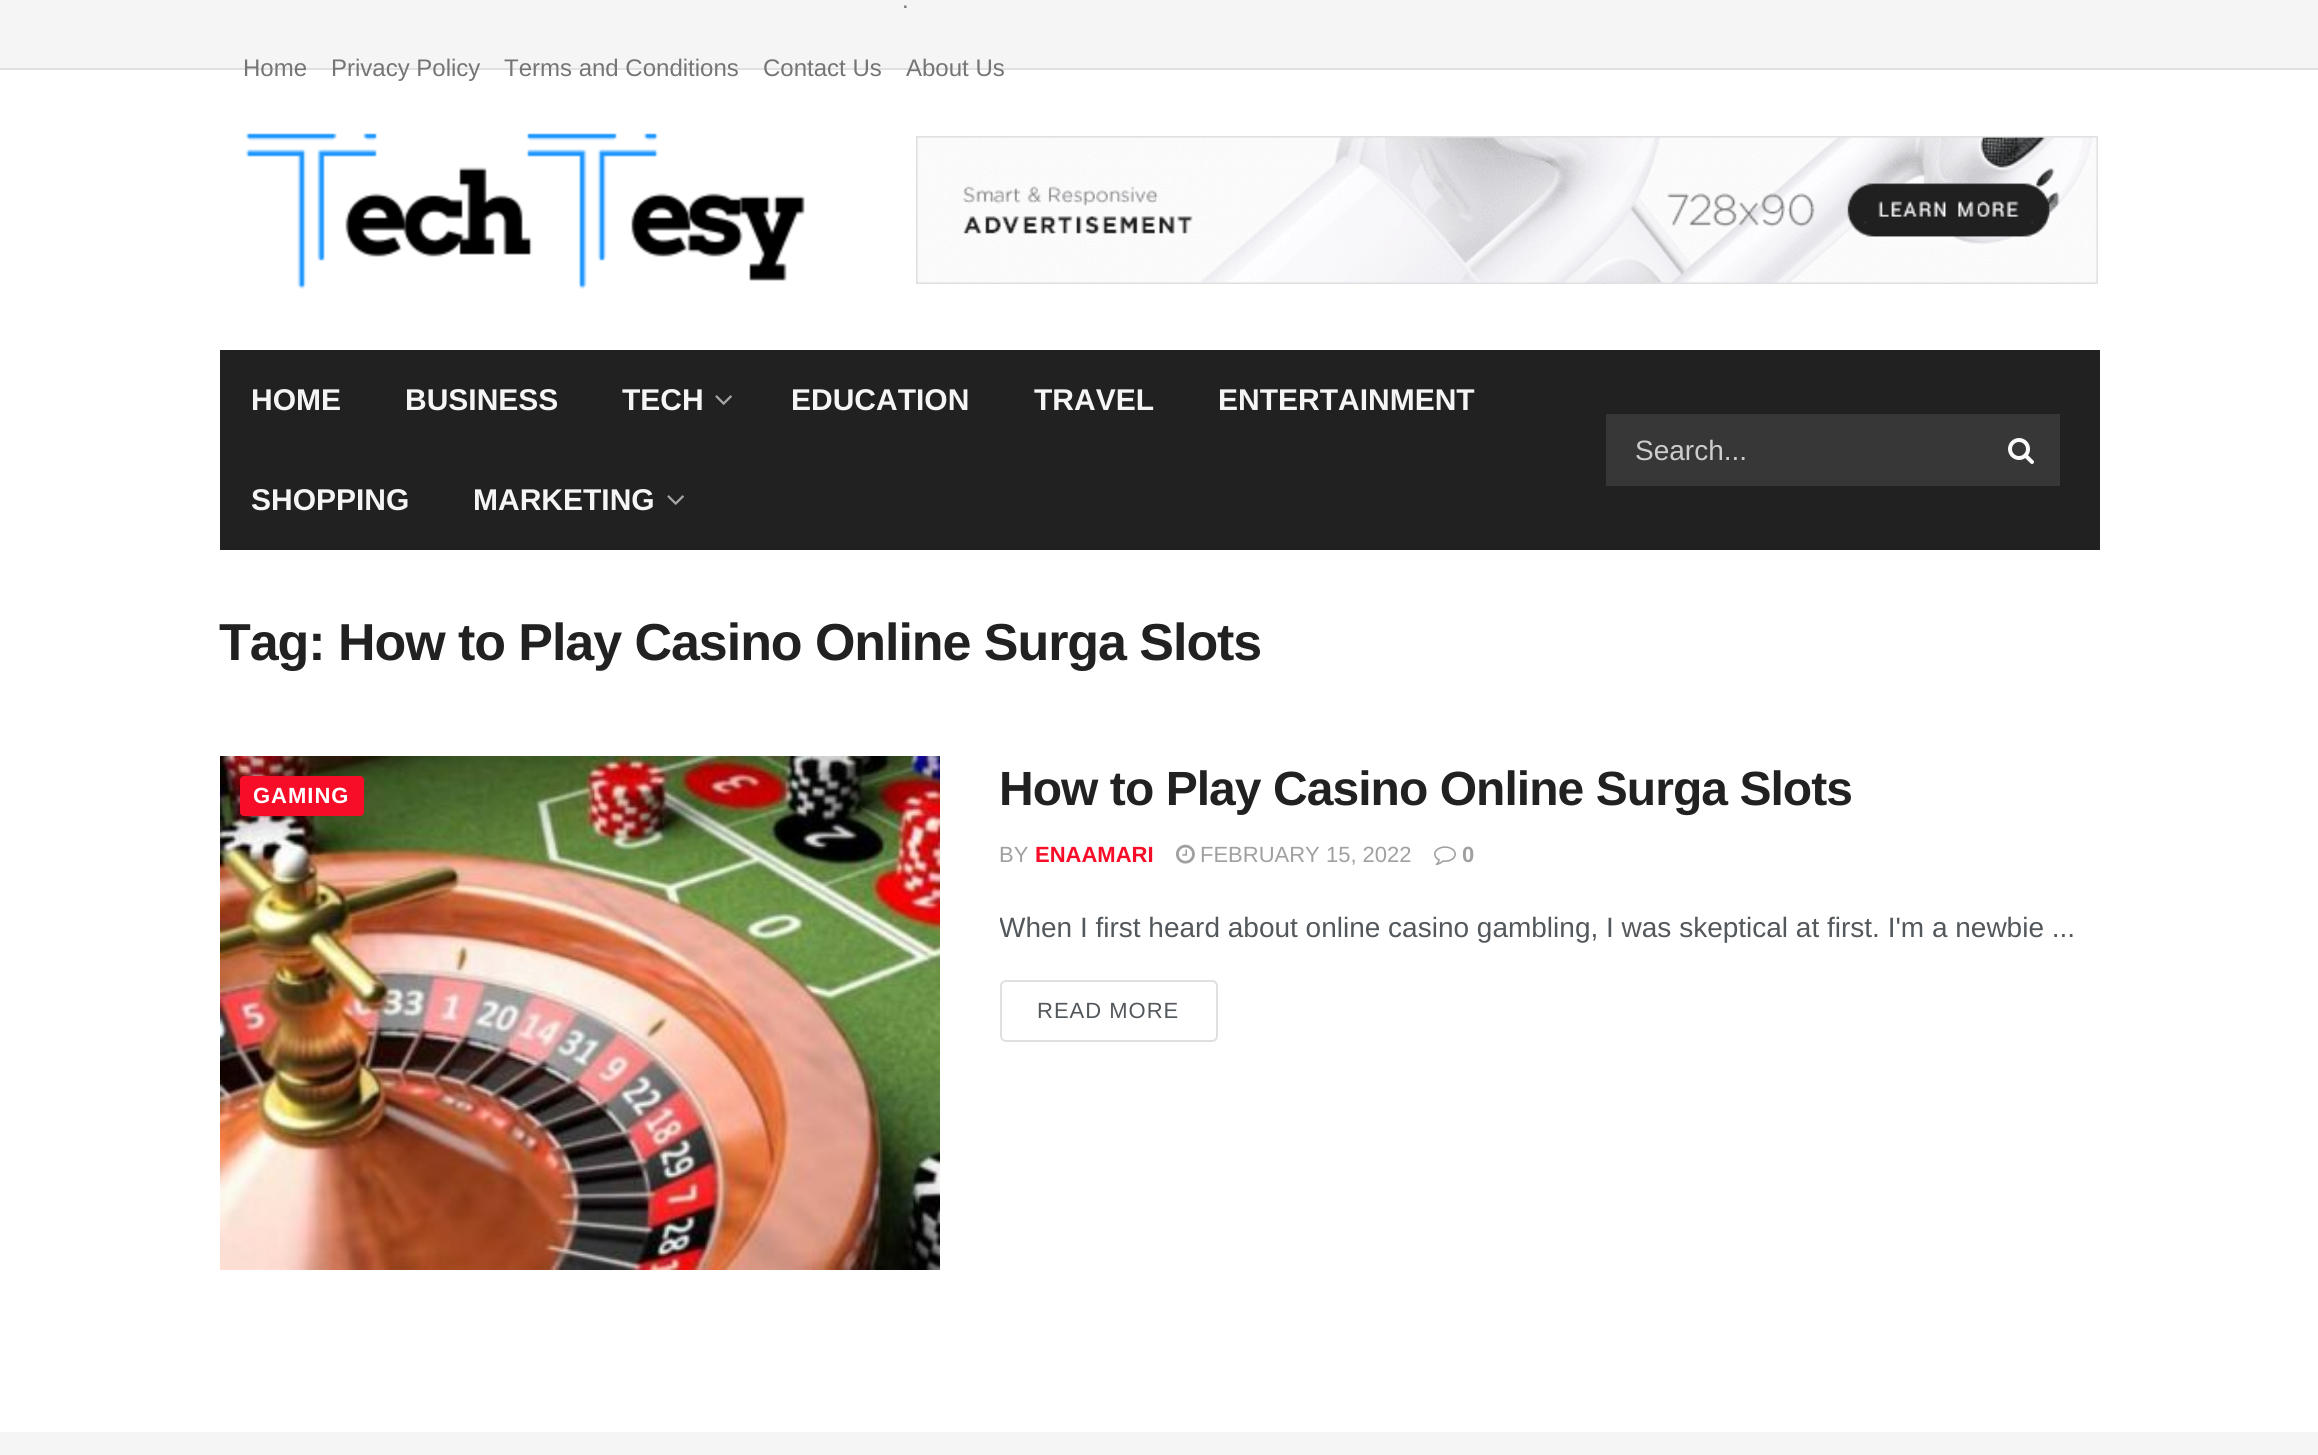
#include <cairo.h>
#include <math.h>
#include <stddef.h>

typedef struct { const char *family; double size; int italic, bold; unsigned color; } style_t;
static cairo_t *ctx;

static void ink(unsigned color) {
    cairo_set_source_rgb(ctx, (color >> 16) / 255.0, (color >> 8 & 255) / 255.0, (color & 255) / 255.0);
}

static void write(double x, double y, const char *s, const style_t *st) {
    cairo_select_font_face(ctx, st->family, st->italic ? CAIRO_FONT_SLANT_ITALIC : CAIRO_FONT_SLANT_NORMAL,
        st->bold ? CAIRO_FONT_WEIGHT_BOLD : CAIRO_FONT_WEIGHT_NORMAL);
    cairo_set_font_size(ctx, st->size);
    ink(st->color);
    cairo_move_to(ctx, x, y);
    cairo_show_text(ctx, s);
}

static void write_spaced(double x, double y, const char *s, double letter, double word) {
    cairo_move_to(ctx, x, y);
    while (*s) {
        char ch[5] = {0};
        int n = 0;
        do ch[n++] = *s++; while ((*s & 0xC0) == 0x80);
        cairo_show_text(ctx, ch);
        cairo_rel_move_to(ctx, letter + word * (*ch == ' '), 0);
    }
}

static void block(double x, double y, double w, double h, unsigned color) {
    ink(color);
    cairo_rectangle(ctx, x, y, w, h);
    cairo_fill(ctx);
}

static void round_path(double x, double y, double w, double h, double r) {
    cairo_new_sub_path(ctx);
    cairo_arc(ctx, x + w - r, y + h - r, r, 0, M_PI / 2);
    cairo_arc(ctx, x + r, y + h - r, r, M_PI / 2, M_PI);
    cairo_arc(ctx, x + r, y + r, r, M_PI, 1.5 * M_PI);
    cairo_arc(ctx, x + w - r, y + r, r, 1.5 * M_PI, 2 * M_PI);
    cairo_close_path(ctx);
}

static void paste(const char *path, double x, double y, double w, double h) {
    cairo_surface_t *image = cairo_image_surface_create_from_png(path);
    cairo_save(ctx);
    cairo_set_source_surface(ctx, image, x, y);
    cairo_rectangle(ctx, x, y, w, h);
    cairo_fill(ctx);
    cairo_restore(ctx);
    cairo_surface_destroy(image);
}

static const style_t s1 = {"Liberation Sans", 24, 0, 0, 0x757575};
static const style_t s2 = {"Liberation Sans", 30, 0, 1, 0xf5f5f5};
static const style_t s3 = {"Liberation Sans", 28, 0, 0, 0xcdcdcd};
static const style_t s4 = {"Liberation Sans", 22, 0, 0, 0xa0a0a0};
static const style_t s5 = {"Liberation Sans", 22, 0, 1, 0xf70d28};
static const style_t s6 = {"Liberation Sans", 22, 0, 1, 0xa0a0a0};
static const style_t s7 = {"Liberation Sans", 28, 0, 0, 0x53585c};

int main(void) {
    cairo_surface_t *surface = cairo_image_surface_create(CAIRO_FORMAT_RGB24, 2318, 1455);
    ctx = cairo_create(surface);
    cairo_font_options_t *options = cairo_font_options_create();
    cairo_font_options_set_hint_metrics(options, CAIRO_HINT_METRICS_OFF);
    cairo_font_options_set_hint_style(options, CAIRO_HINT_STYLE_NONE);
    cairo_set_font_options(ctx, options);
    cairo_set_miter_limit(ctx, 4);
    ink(0xffffff);
    cairo_paint(ctx);
    block(0, 0, 2318, 68, 0xf5f5f5);
    block(0, 68, 2318, 2, 0xe0e0e0);
    write(902, 8, ".", &s1);
    write(243, 76, "Home", &s1);
    write(331, 76, "Privacy Policy", &s1);
    write(504, 76, "Terms and Conditions", &s1);
    write(763, 76, "Contact Us", &s1);
    write(906, 76, "About Us", &s1);
    paste("pic1.png", 245, 133, 560, 156);
    paste("pic2.png", 916, 136, 1182, 148);
    block(220, 350, 1880, 200, 0x212121);
    write(251, 410, "HOME", &s2);
    write(405, 410, "BUSINESS", &s2);
    write(622, 410, "TECH", &s2);
    paste("pic3.png", 715, 395, 17, 10);
    write(791, 410, "EDUCATION", &s2);
    write(1034, 410, "TRAVEL", &s2);
    write(1218, 410, "ENTERTAINMENT", &s2);
    write(251, 510, "SHOPPING", &s2);
    write(473, 510, "MARKETING", &s2);
    paste("pic3.png", 667, 495, 17, 10);
    block(1606, 414, 454, 72, 0x373737);
    write(1635, 460, "Search...", &s3);
    paste("pic4.png", 2008, 438, 26, 26);
    cairo_select_font_face(ctx, "Liberation Sans", CAIRO_FONT_SLANT_NORMAL, CAIRO_FONT_WEIGHT_BOLD);
    cairo_set_font_size(ctx, 52);
    ink(0x212121);
    write_spaced(219, 660, "Tag: How to Play Casino Online Surga Slots", -1.05, 0);
    paste("pic5.png", 220, 756, 720, 514);
    ink(0xf70d28);
    round_path(240, 776, 124, 40, 4);
    cairo_fill(ctx);
    cairo_set_font_size(ctx, 22);
    ink(0xffffff);
    write_spaced(253, 803, "GAMING", 1, 0);
    cairo_set_font_size(ctx, 48);
    ink(0x212121);
    write_spaced(999, 805, "How to Play Casino Online Surga Slots", -0.95, 0);
    write(999, 862, "BY", &s4);
    write(1035, 862, "ENAAMARI", &s5);
    paste("pic6.png", 1176, 844, 19, 20);
    write(1200, 862, "FEBRUARY 15, 2022", &s4);
    paste("pic7.png", 1434, 846, 22, 20);
    write(1462, 862, "0", &s6);
    cairo_save(ctx);
    cairo_rectangle(ctx, 1000, 756, 1100, 296);
    cairo_clip(ctx);
    write(999, 937, "When I first heard about online casino gambling, I was skeptical at first. I'm a newbie ...", &s7);
    cairo_restore(ctx);
    round_path(1001, 981, 216, 60, 5);
    ink(0xe0e0e0);
    cairo_stroke(ctx);
    cairo_select_font_face(ctx, "Liberation Sans", CAIRO_FONT_SLANT_NORMAL, CAIRO_FONT_WEIGHT_NORMAL);
    ink(0x53585c);
    write_spaced(1037, 1018, "READ MORE", 1, 0);
    block(0, 1432, 2318, 23, 0xf5f5f5);
    cairo_surface_write_to_png(surface, "screenshot.png");
    cairo_font_options_destroy(options);
    cairo_destroy(ctx);
    cairo_surface_destroy(surface);
    return 0;
}
